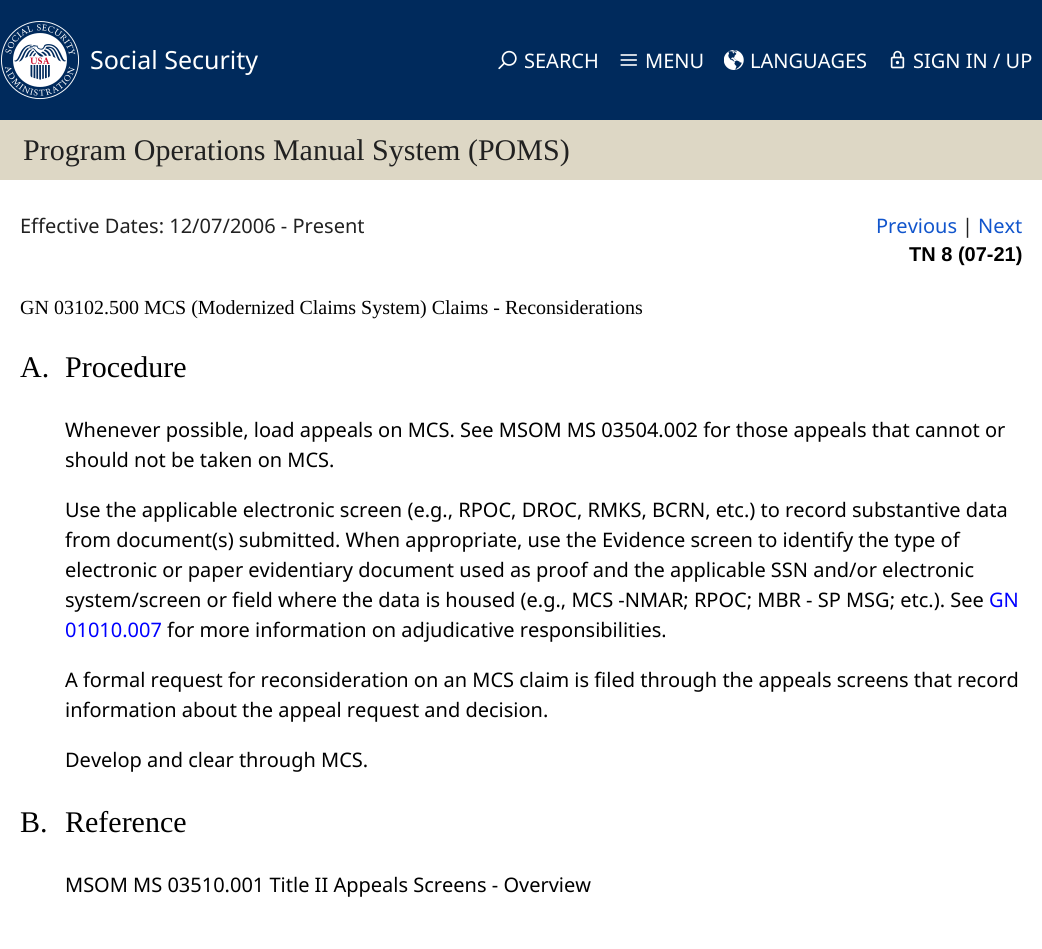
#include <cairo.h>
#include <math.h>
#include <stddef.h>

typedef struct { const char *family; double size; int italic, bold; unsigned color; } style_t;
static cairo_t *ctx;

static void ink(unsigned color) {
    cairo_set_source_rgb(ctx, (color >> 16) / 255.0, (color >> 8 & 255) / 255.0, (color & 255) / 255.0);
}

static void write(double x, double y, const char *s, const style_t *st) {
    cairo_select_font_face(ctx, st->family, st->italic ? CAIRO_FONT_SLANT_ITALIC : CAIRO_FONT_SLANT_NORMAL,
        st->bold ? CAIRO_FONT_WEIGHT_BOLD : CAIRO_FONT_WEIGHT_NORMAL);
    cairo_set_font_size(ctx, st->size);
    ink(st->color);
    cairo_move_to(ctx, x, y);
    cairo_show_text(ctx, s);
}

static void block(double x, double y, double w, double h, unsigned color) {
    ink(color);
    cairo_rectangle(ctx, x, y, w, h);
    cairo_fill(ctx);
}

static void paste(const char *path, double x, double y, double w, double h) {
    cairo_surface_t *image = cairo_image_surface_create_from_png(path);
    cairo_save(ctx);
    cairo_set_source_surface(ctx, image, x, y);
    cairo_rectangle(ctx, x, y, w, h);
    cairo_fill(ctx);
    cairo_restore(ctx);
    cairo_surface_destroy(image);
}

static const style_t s1 = {"Noto Sans", 25, 0, 0, 0xffffff};
static const style_t s2 = {"Noto Sans", 20, 0, 0, 0xffffff};
static const style_t s3 = {"Liberation Serif", 30, 0, 0, 0x212121};
static const style_t s4 = {"Noto Sans", 20, 0, 0, 0x212121};
static const style_t s5 = {"Noto Sans", 20, 0, 0, 0x1155cc};
static const style_t s6 = {"Liberation Sans", 20, 0, 1, 0x000000};
static const style_t s7 = {"Liberation Serif", 20, 0, 0, 0x000000};
static const style_t s8 = {"Liberation Serif", 30, 0, 0, 0x000000};
static const style_t s9 = {"Noto Sans", 20, 0, 0, 0x000000};
static const style_t s10 = {"Noto Sans", 20, 0, 0, 0x0000ff};

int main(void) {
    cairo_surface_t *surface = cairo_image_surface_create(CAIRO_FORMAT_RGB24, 1042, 949);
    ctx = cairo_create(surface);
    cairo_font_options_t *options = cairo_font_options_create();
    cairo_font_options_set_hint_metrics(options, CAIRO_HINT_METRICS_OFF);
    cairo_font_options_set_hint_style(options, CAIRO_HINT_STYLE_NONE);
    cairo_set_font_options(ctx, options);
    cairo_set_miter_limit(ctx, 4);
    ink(0x002a5c);
    cairo_paint(ctx);
    paste("pic1.png", 1, 21, 79, 79);
    write(90, 69, "Social Security", &s1);
    paste("pic2.png", 498, 50, 19, 20);
    write(524, 68, "SEARCH", &s2);
    paste("pic3.png", 620, 54, 17, 12);
    write(645, 68, "MENU", &s2);
    paste("pic4.png", 724, 50, 20, 20);
    write(750, 68, "LANGUAGES", &s2);
    paste("pic5.png", 890, 50, 15, 19);
    write(913, 68, "SIGN IN / UP", &s2);
    block(0, 120, 1042, 60, 0xddd7c5);
    write(23, 160, "Program Operations Manual System (POMS)", &s3);
    block(0, 180, 1042, 769, 0xffffff);
    write(20, 233, "Effective Dates: 12/07/2006 - Present", &s4);
    write(876, 233, "Previous", &s5);
    write(962, 233, "|", &s4);
    write(978, 233, "Next", &s5);
    write(909, 261, "TN 8 (07-21)", &s6);
    write(20, 314, "GN 03102.500 MCS (Modernized Claims System) Claims - Reconsiderations", &s7);
    write(20, 377, "A.", &s8);
    write(65, 377, "Procedure", &s8);
    write(65, 437, "Whenever possible, load appeals on MCS. See MSOM MS 03504.002 for those appeals that cannot or", &s9);
    write(65, 467, "should not be taken on MCS.", &s9);
    write(65, 517, "Use the applicable electronic screen (e.g., RPOC, DROC, RMKS, BCRN, etc.) to record substantive data", &s9);
    write(65, 547, "from document(s) submitted. When appropriate, use the Evidence screen to identify the type of", &s9);
    write(65, 577, "electronic or paper evidentiary document used as proof and the applicable SSN and/or electronic", &s9);
    write(65, 607, "system/screen or field where the data is housed (e.g., MCS -NMAR; RPOC; MBR - SP MSG; etc.). See", &s9);
    write(989, 607, "GN", &s10);
    write(65, 637, "01010.007", &s10);
    write(167, 637, "for more information on adjudicative responsibilities.", &s9);
    write(65, 687, "A formal request for reconsideration on an MCS claim is filed through the appeals screens that record", &s9);
    write(65, 717, "information about the appeal request and decision.", &s9);
    write(65, 767, "Develop and clear through MCS.", &s9);
    write(20, 832, "B.", &s8);
    write(65, 832, "Reference", &s8);
    write(65, 892, "MSOM MS 03510.001 Title II Appeals Screens - Overview", &s9);
    cairo_surface_write_to_png(surface, "screenshot.png");
    cairo_font_options_destroy(options);
    cairo_destroy(ctx);
    cairo_surface_destroy(surface);
    return 0;
}
